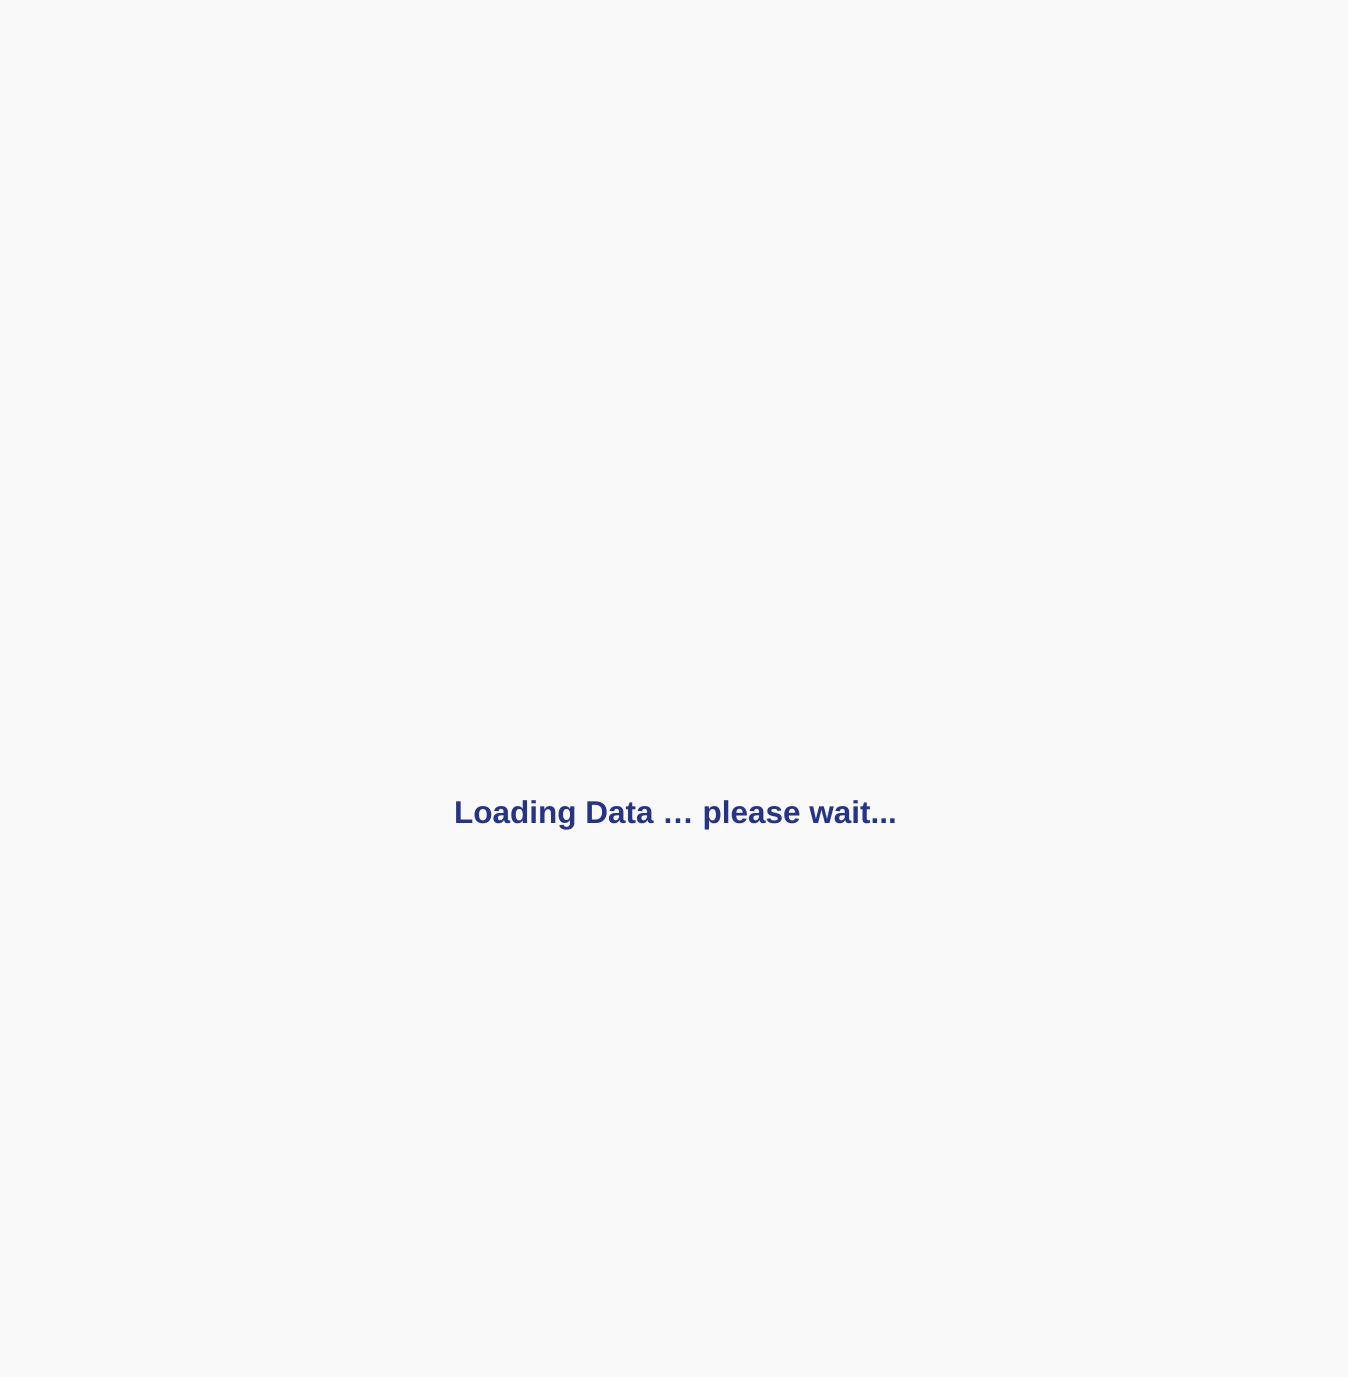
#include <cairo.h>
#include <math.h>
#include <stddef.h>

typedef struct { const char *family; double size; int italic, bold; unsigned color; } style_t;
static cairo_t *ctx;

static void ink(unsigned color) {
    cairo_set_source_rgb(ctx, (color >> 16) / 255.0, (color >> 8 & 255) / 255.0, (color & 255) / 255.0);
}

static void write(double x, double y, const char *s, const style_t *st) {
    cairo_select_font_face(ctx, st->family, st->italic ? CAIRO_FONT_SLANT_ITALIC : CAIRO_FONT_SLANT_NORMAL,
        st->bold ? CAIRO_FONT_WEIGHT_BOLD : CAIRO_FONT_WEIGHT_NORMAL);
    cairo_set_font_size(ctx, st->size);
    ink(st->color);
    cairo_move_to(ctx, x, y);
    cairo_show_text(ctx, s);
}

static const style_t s1 = {"Liberation Sans", 31.5, 0, 1, 0x263487};

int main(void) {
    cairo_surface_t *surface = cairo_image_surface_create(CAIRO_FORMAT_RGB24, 1348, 1377);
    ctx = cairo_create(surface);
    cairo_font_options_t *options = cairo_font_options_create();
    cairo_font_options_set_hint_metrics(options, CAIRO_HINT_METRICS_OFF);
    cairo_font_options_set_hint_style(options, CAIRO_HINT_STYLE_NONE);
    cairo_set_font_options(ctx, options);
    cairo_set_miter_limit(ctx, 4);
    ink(0xf9f9f9);
    cairo_paint(ctx);
    write(454, 823, "Loading Data … please wait...", &s1);
    cairo_surface_write_to_png(surface, "screenshot.png");
    cairo_font_options_destroy(options);
    cairo_destroy(ctx);
    cairo_surface_destroy(surface);
    return 0;
}
